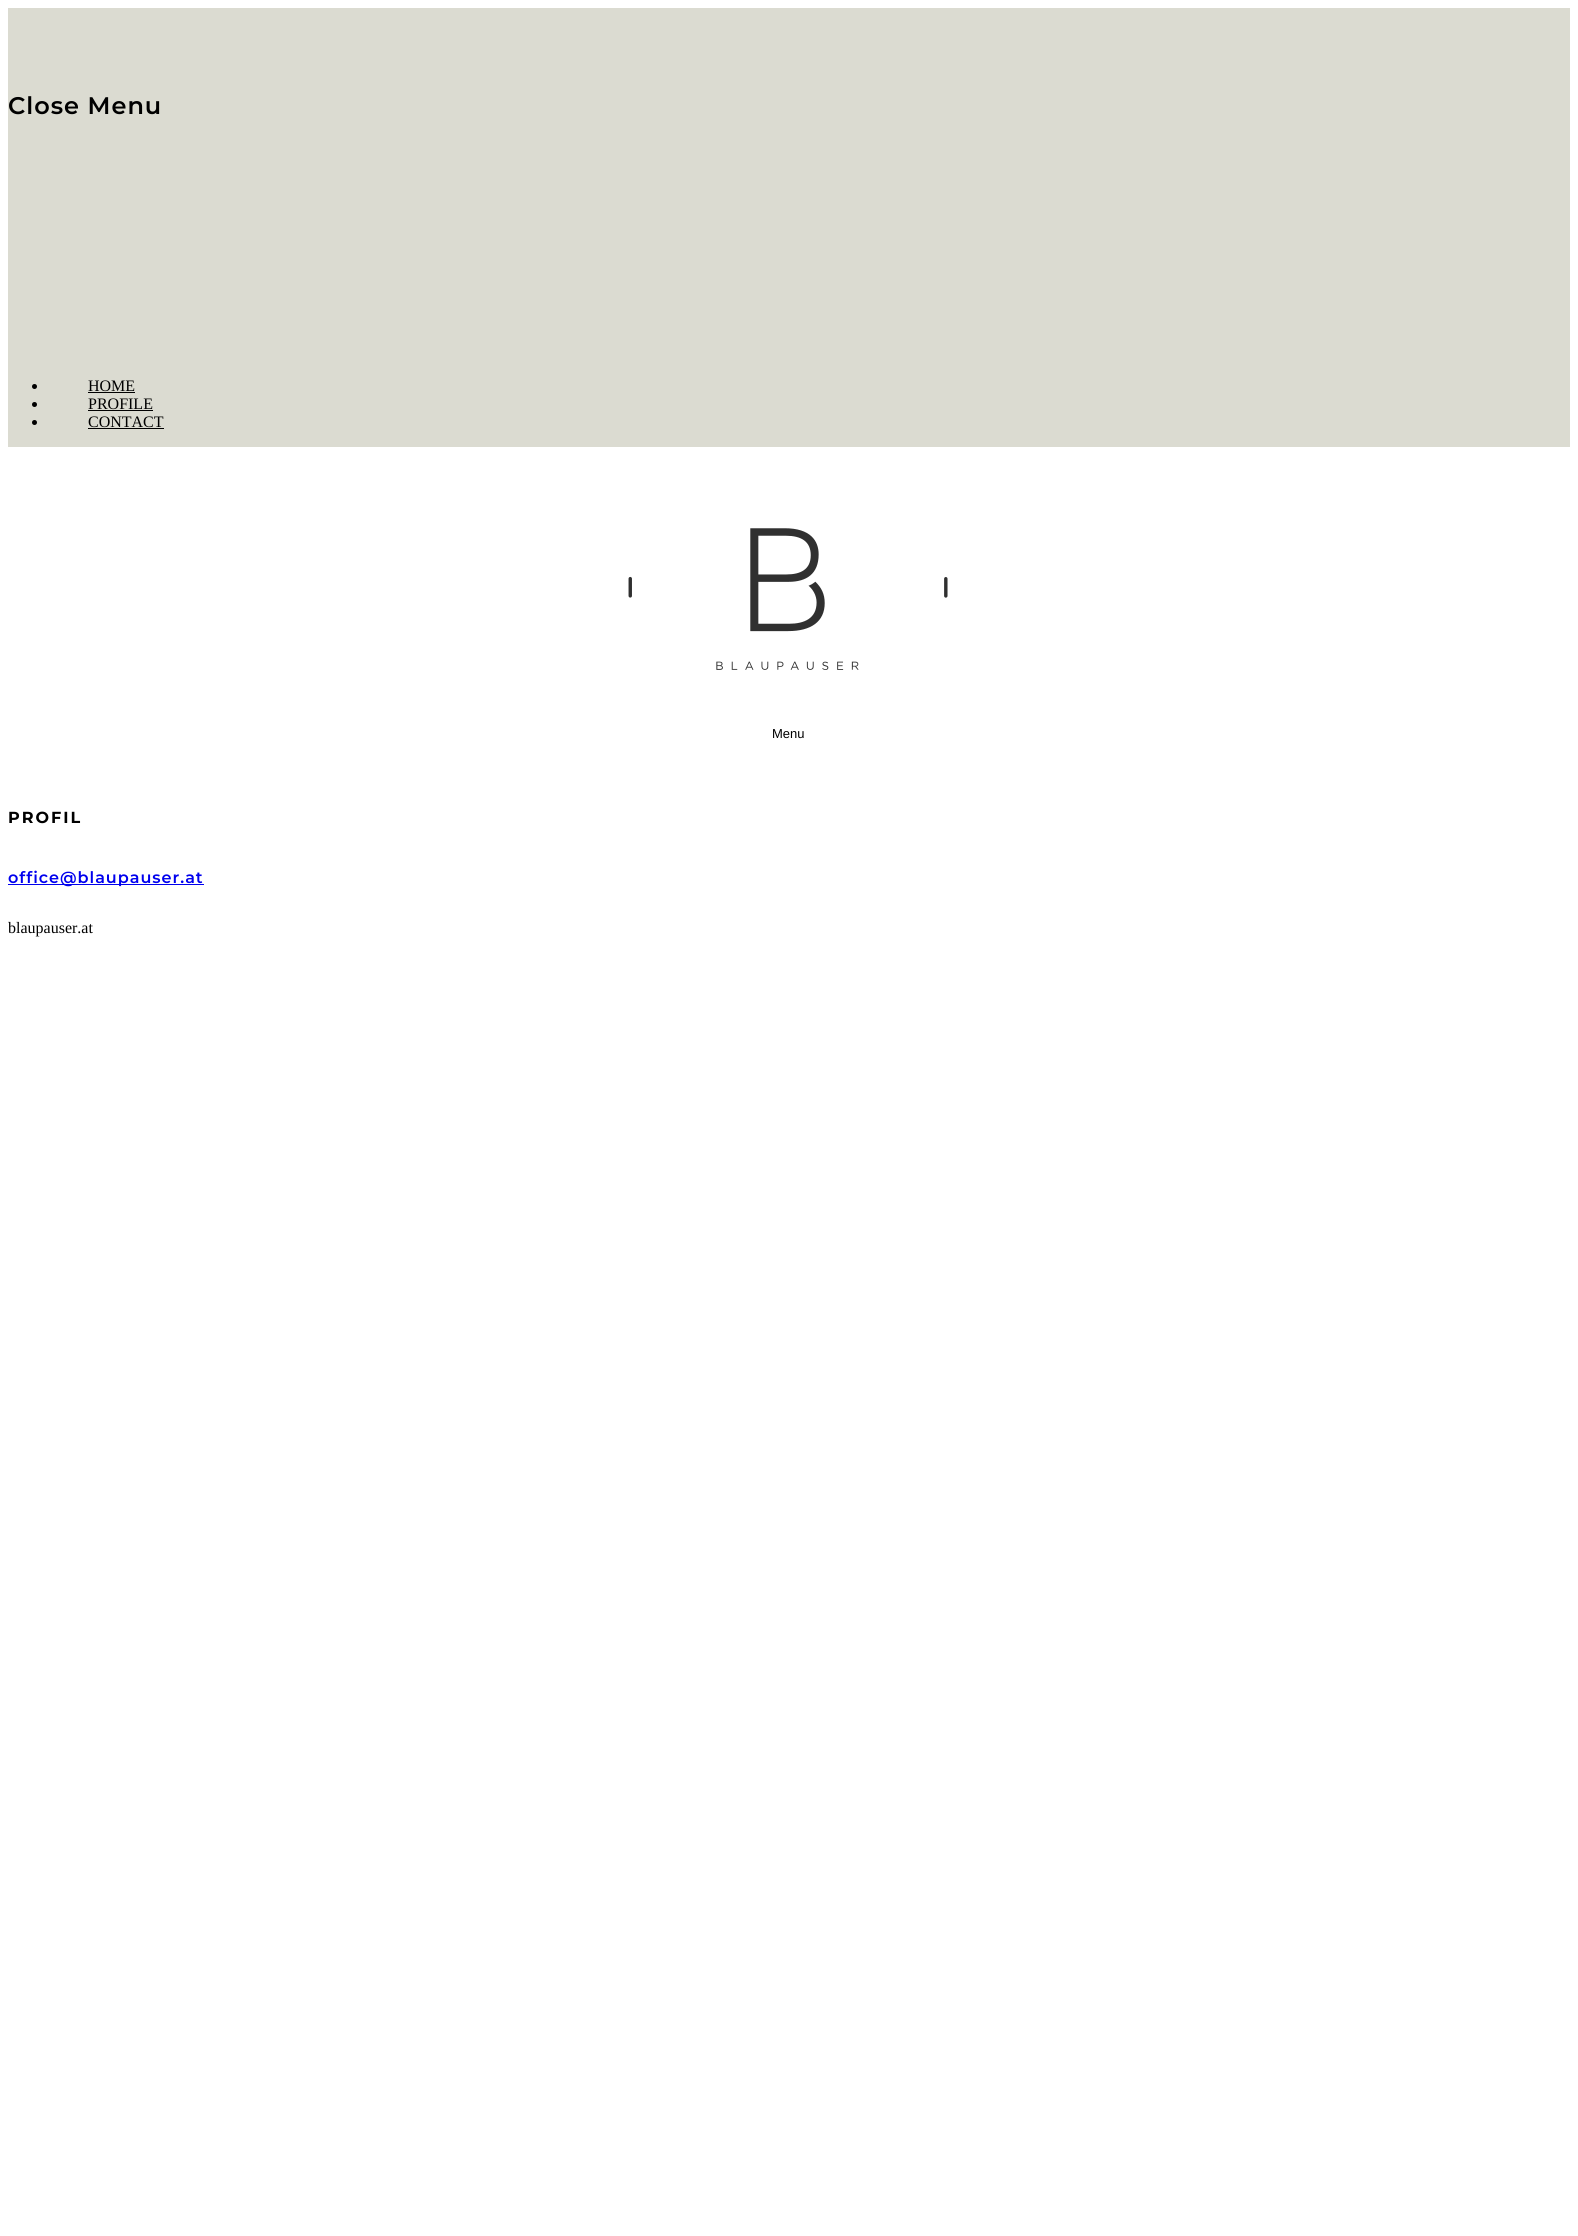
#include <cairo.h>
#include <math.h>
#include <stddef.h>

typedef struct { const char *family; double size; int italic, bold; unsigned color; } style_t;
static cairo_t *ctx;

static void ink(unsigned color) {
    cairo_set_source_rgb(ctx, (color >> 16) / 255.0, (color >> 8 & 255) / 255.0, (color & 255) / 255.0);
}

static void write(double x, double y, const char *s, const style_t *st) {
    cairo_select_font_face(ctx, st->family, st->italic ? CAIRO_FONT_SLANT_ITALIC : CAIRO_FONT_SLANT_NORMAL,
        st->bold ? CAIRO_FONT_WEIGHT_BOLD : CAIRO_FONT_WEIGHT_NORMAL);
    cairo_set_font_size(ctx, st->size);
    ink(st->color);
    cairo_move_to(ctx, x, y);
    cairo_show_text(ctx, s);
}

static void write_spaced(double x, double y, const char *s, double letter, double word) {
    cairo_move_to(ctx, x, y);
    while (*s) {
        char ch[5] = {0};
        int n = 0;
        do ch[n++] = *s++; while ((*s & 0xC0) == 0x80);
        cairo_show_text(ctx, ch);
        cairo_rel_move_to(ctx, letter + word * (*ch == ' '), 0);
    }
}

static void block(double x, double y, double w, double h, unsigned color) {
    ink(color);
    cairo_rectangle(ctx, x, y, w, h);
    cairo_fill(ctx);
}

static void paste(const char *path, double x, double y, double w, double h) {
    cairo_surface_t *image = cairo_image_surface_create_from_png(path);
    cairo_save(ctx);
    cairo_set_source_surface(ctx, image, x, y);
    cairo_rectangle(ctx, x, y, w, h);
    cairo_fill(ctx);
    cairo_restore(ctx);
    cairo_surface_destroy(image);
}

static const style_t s1 = {"Liberation Serif", 16, 0, 0, 0x000000};
static const style_t s2 = {"Liberation Sans", 13, 0, 0, 0x000000};

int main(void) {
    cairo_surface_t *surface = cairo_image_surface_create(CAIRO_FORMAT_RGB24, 1578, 2236);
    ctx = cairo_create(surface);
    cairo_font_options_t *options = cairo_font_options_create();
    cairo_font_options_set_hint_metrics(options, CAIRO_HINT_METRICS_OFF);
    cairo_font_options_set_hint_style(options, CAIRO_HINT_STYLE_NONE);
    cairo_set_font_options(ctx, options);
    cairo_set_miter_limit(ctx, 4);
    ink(0xffffff);
    cairo_paint(ctx);
    block(8, 8, 1562, 439, 0xdbdbd1);
    cairo_select_font_face(ctx, "Montserrat SemiBold", CAIRO_FONT_SLANT_NORMAL, CAIRO_FONT_WEIGHT_NORMAL);
    cairo_set_font_size(ctx, 24);
    ink(0x000000);
    write_spaced(8, 114, "Close Menu", 1, 0);
    cairo_new_path(ctx);
    cairo_arc(ctx, 34.5, 386.5, 2.5, 0, 2 * M_PI);
    cairo_fill(ctx);
    write(88, 391, "HOME", &s1);
    block(88, 392, 47, 1, 0x000000);
    cairo_new_path(ctx);
    cairo_arc(ctx, 34.5, 404.5, 2.5, 0, 2 * M_PI);
    cairo_fill(ctx);
    write(88, 409, "PROFILE", &s1);
    block(88, 410, 65, 1, 0x000000);
    cairo_new_path(ctx);
    cairo_arc(ctx, 34.5, 422.5, 2.5, 0, 2 * M_PI);
    cairo_fill(ctx);
    write(88, 427, "CONTACT", &s1);
    block(88, 428, 76, 1, 0x000000);
    paste("pic1.png", 628, 528, 320, 142);
    write(772, 738, "Menu", &s2);
    cairo_select_font_face(ctx, "Montserrat", CAIRO_FONT_SLANT_NORMAL, CAIRO_FONT_WEIGHT_BOLD);
    cairo_set_font_size(ctx, 16);
    write_spaced(8, 823, "PROFIL", 2, 0);
    block(8, 884, 196, 1, 0x0000ee);
    cairo_select_font_face(ctx, "Montserrat SemiBold", CAIRO_FONT_SLANT_NORMAL, CAIRO_FONT_WEIGHT_NORMAL);
    write_spaced(8, 883, "office@blaupauser.at", 1, 0);
    write(8, 933, "blaupauser.at", &s1);
    cairo_surface_write_to_png(surface, "screenshot.png");
    cairo_font_options_destroy(options);
    cairo_destroy(ctx);
    cairo_surface_destroy(surface);
    return 0;
}
